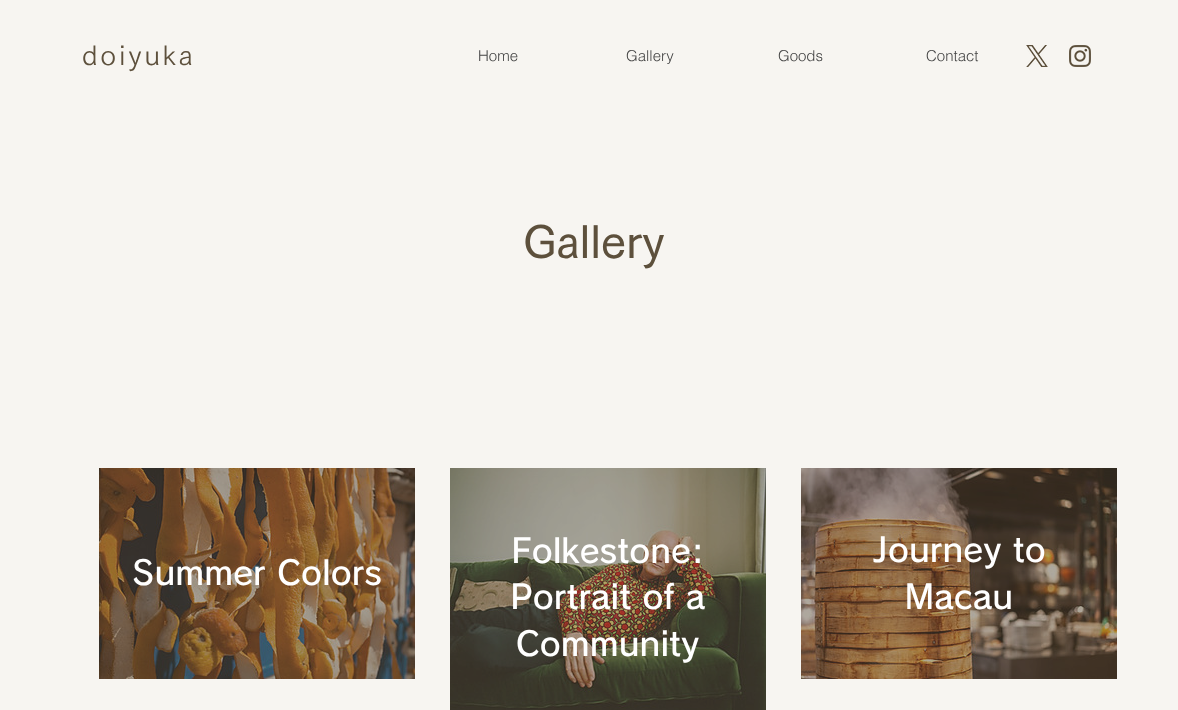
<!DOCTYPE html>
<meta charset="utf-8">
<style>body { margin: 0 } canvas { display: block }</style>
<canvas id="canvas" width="1178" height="710"></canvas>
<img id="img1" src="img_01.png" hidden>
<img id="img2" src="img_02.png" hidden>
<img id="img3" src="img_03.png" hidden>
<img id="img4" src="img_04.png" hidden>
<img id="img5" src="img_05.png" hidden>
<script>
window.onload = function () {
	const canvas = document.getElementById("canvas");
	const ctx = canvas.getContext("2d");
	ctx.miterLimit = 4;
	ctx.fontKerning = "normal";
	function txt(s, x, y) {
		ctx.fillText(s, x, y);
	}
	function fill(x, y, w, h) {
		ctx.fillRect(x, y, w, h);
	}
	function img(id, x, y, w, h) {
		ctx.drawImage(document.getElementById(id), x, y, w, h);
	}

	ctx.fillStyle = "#F7F5F1";
	fill(0, 0, 1178, 710);
	img("img1", 1026, 45, 22, 22);
	img("img2", 1069, 45, 22, 22);
	img("img3", 99, 468, 316, 211);
	img("img4", 450, 468, 316, 242);
	img("img5", 801, 468, 316, 211);
	ctx.letterSpacing = "2.75px";
	ctx.font = "27px 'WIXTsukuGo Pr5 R'";
	ctx.fillStyle = "#5D503C";
	txt("doiyuka", 82, 65);
	ctx.letterSpacing = "0px";
	ctx.font = "300 15px helvetica";
	ctx.fillStyle = "#444444";
	txt("Home", 478, 61);
	txt("Gallery", 626, 61);
	txt("Goods", 778, 61);
	txt("Contact", 926, 61);
	ctx.font = "600 45px 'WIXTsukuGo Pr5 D'";
	ctx.fillStyle = "#5D503C";
	txt("Gallery", 523, 258);
	ctx.font = "600 33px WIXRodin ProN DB";
	ctx.fillStyle = "#FFFFFF";
	txt("Summer Colors", 132, 585);
	txt("Folkestone:", 511, 563);
	txt("Portrait of a", 510, 609);
	txt("Community", 516, 656);
	txt("Journey to", 873, 562);
	txt("Macau", 904, 609);
};
</script>
